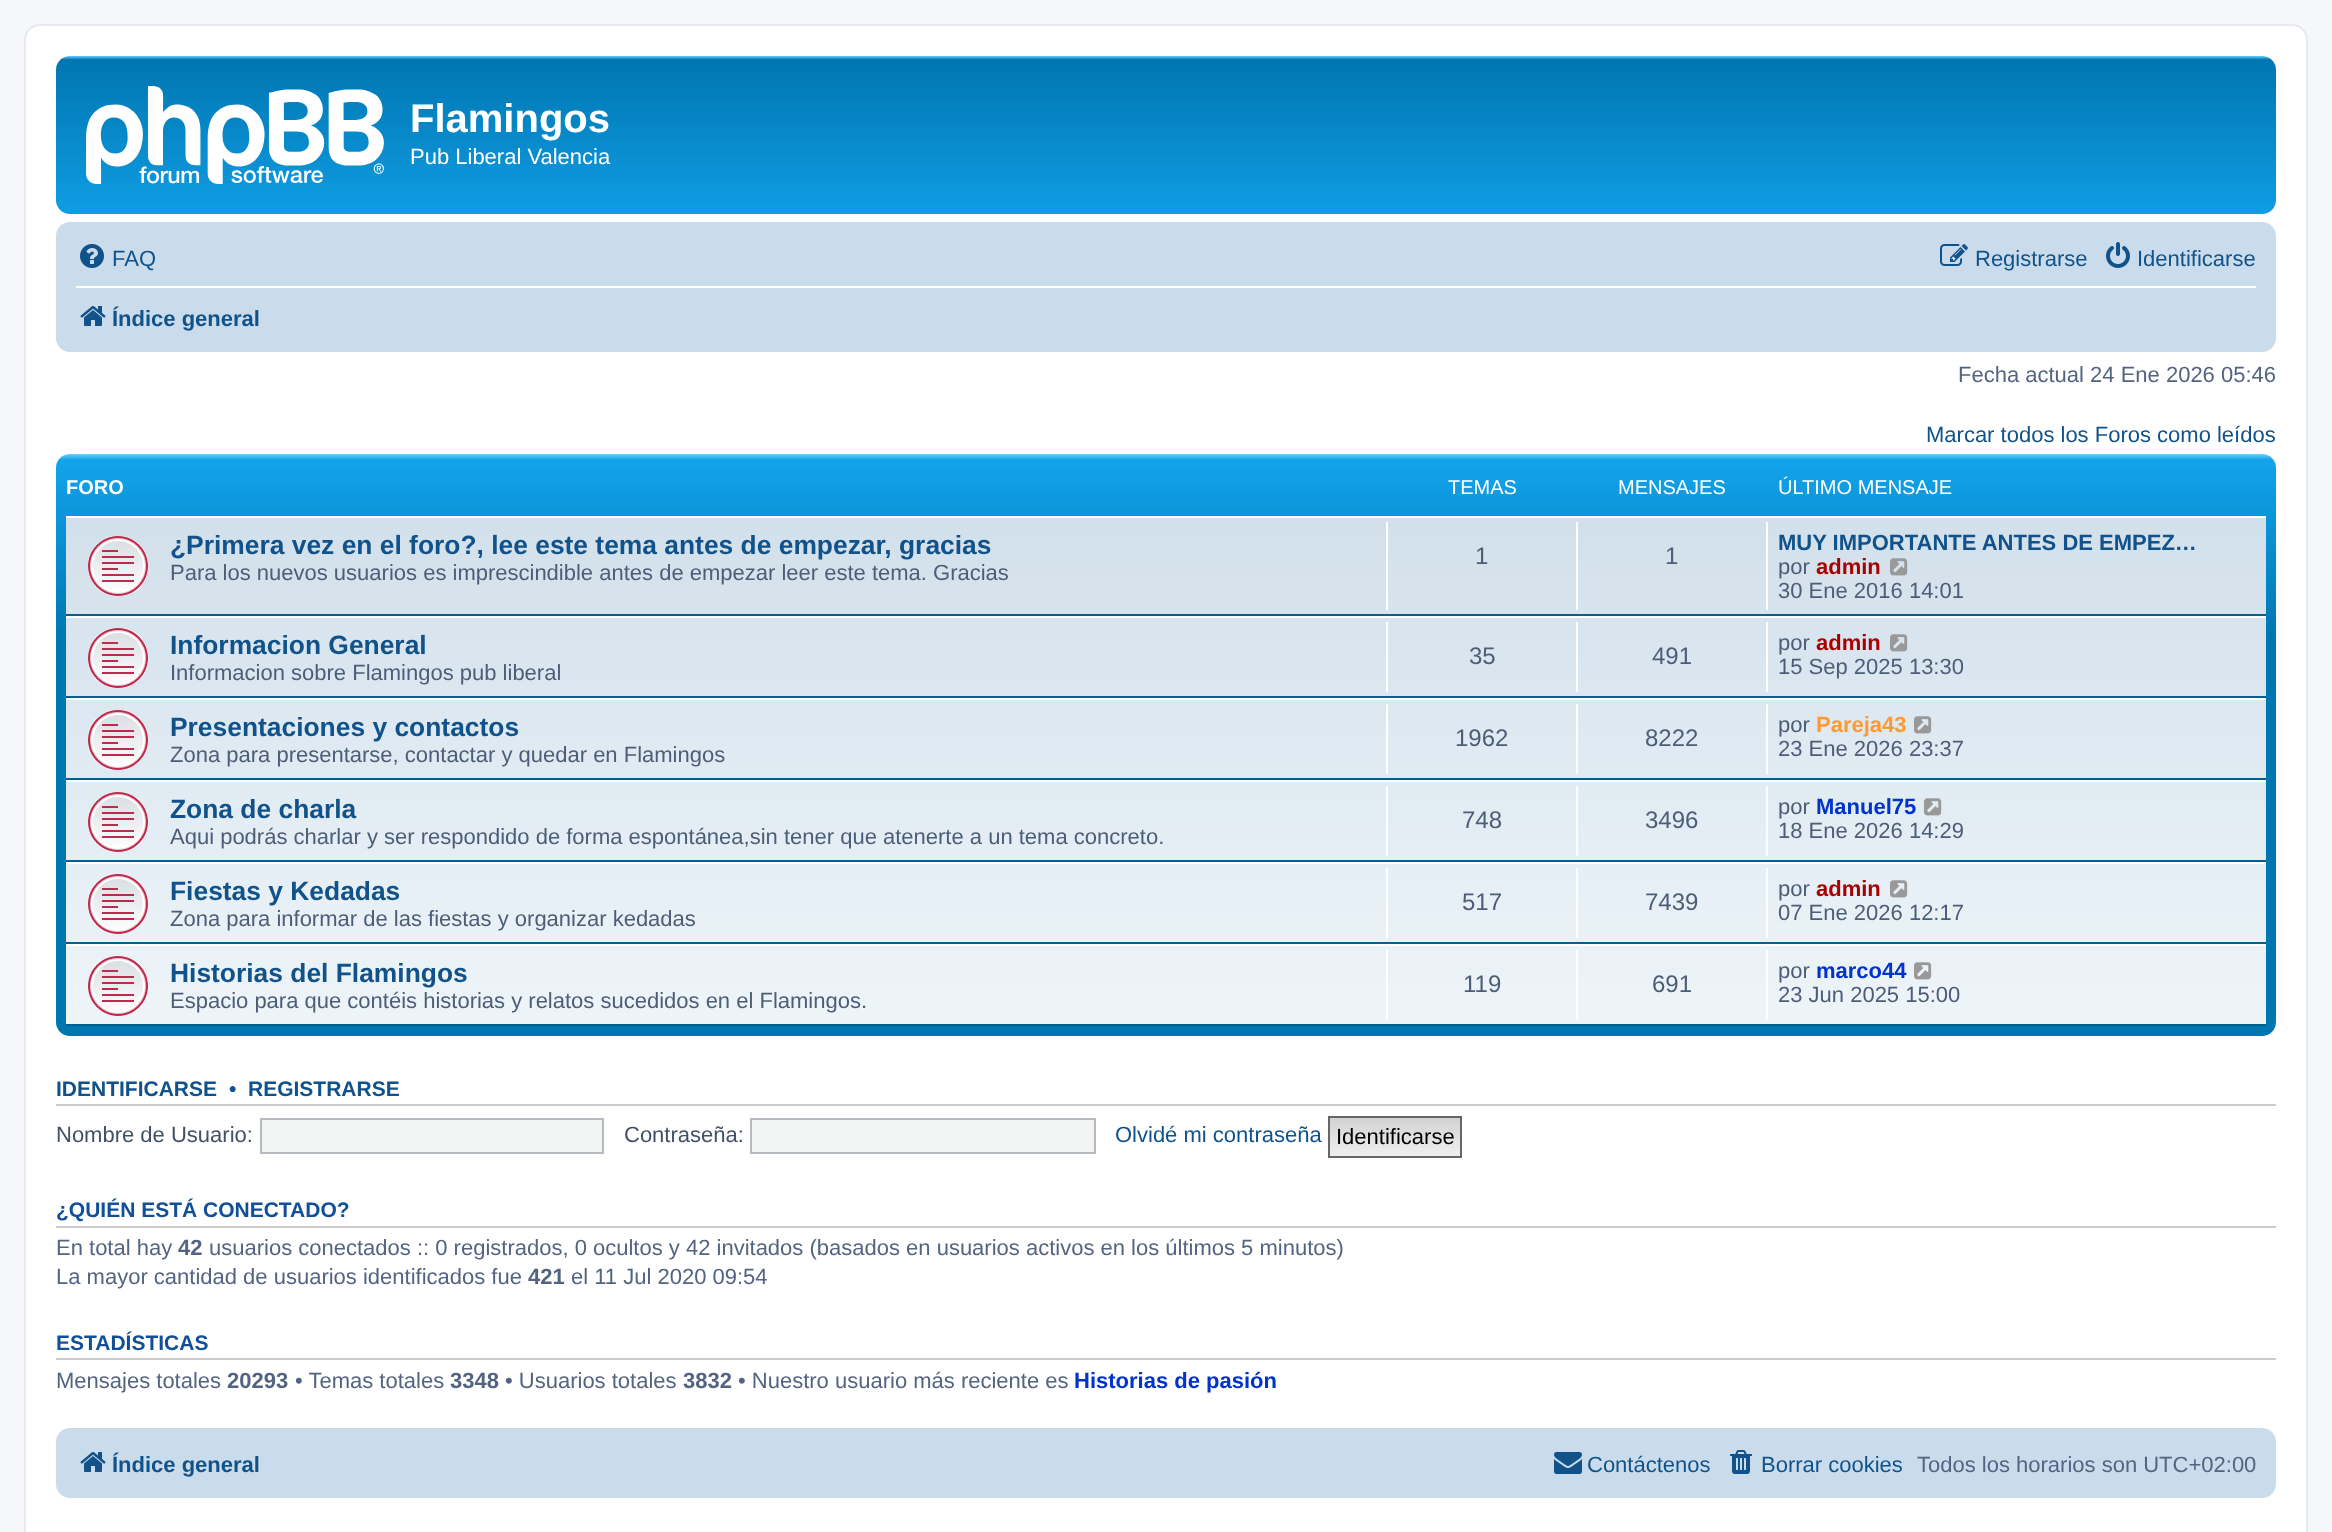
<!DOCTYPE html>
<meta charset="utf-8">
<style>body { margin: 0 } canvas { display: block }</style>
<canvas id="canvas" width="2332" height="1532"></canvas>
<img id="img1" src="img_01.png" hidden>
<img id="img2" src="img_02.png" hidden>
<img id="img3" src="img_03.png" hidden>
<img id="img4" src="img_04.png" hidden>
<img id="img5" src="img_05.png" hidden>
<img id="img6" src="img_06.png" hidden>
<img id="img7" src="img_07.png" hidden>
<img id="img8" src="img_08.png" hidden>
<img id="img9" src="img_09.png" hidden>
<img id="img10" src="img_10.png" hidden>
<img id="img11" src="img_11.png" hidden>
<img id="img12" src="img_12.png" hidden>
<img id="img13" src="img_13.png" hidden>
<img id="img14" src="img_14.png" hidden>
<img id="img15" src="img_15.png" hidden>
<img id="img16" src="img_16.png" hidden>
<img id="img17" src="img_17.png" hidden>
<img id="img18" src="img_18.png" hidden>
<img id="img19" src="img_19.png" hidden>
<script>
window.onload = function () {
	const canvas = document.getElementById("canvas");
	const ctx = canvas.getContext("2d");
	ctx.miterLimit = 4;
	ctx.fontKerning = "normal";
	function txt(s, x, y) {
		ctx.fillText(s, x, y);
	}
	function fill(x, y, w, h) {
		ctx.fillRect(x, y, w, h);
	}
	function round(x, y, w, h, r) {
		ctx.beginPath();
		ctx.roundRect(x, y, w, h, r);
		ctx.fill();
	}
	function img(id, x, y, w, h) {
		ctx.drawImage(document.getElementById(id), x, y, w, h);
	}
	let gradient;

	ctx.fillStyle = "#F5F7FA";
	fill(0, 0, 2332, 1532);
	ctx.fillStyle = "#FFFFFF";
	ctx.beginPath();
	ctx.roundRect(25, 25, 2282, 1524, 15);
	ctx.fill();
	ctx.strokeStyle = "#E6E9ED";
	ctx.lineWidth = 2;
	ctx.stroke();
	gradient = ctx.createLinearGradient(1166, 56, 1166, 240);
	gradient.addColorStop(0, "#6ACEFF");
	gradient.addColorStop(0.02, "#0076B1");
	gradient.addColorStop(1, "#12A3EB");
	ctx.fillStyle = gradient;
	round(56, 56, 2220, 158, 14);
	img("img1", 86, 86, 298, 98);
	ctx.fillStyle = "#CADCEB";
	round(56, 222, 2220, 130, 14);
	img("img2", 80, 244, 24, 24);
	img("img3", 1940, 244, 28, 22);
	img("img4", 2106, 242, 24, 26);
	ctx.fillStyle = "#FFFFFF";
	fill(76, 286, 2180, 2);
	img("img5", 80, 306, 26, 20);
	gradient = ctx.createLinearGradient(1166, 454, 1166, 1036);
	gradient.addColorStop(0, "#6ACEFF");
	gradient.addColorStop(0.01, "#12A3EB");
	gradient.addColorStop(0.32, "#0076B1");
	gradient.addColorStop(1, "#0076B1");
	ctx.fillStyle = gradient;
	round(56, 454, 2220, 582, 14);
	gradient = ctx.createLinearGradient(1166, 516, 1166, 1026);
	gradient.addColorStop(0, "#D2E0EB");
	gradient.addColorStop(1, "#EEF5F9");
	ctx.fillStyle = gradient;
	fill(66, 518, 2200, 506);
	ctx.fillStyle = "#FFFFFF";
	fill(66, 516, 2200, 2);
	ctx.fillStyle = "#00608F";
	fill(66, 614, 2200, 2);
	img("img6", 88, 536, 60, 60);
	ctx.fillStyle = "#FFFFFF";
	fill(1386, 522, 2, 88);
	fill(1576, 522, 2, 88);
	fill(1766, 522, 2, 88);
	img("img7", 1890, 558, 18, 18);
	fill(66, 616, 2200, 2);
	ctx.fillStyle = "#00608F";
	fill(66, 696, 2200, 2);
	img("img8", 88, 628, 60, 60);
	ctx.fillStyle = "#FFFFFF";
	fill(1386, 622, 2, 70);
	fill(1576, 622, 2, 70);
	fill(1766, 622, 2, 70);
	img("img9", 1890, 634, 18, 18);
	fill(66, 698, 2200, 2);
	ctx.fillStyle = "#00608F";
	fill(66, 778, 2200, 2);
	img("img10", 88, 710, 60, 60);
	ctx.fillStyle = "#FFFFFF";
	fill(1386, 704, 2, 70);
	fill(1576, 704, 2, 70);
	fill(1766, 704, 2, 70);
	img("img11", 1914, 716, 18, 18);
	fill(66, 780, 2200, 2);
	ctx.fillStyle = "#00608F";
	fill(66, 860, 2200, 2);
	img("img12", 88, 792, 60, 60);
	ctx.fillStyle = "#FFFFFF";
	fill(1386, 786, 2, 70);
	fill(1576, 786, 2, 70);
	fill(1766, 786, 2, 70);
	img("img13", 1924, 798, 18, 18);
	fill(66, 862, 2200, 2);
	ctx.fillStyle = "#00608F";
	fill(66, 942, 2200, 2);
	img("img14", 88, 874, 60, 60);
	ctx.fillStyle = "#FFFFFF";
	fill(1386, 868, 2, 70);
	fill(1576, 868, 2, 70);
	fill(1766, 868, 2, 70);
	img("img15", 1890, 880, 18, 18);
	fill(66, 944, 2200, 2);
	ctx.fillStyle = "#00608F";
	fill(66, 1024, 2200, 2);
	img("img16", 88, 956, 60, 60);
	ctx.fillStyle = "#FFFFFF";
	fill(1386, 950, 2, 70);
	fill(1576, 950, 2, 70);
	fill(1766, 950, 2, 70);
	img("img17", 1914, 962, 18, 18);
	ctx.fillStyle = "#CCCCCC";
	fill(56, 1104, 2220, 2);
	ctx.fillStyle = "#F2F3F3";
	ctx.beginPath();
	ctx.rect(261, 1119, 342, 34);
	ctx.fill();
	ctx.strokeStyle = "#B4BAC0";
	ctx.stroke();
	ctx.beginPath();
	ctx.rect(751, 1119, 344, 34);
	ctx.fill();
	ctx.stroke();
	gradient = ctx.createLinearGradient(1395, 1118, 1395, 1156);
	gradient.addColorStop(0, "#D2D2D2");
	gradient.addColorStop(1, "#EFEFEF");
	ctx.fillStyle = gradient;
	fill(1330, 1118, 130, 38);
	ctx.strokeStyle = "#666666";
	ctx.strokeRect(1329, 1117, 132, 40);
	ctx.fillStyle = "#CCCCCC";
	fill(56, 1226, 2220, 2);
	fill(56, 1358, 2220, 2);
	ctx.fillStyle = "#CADCEB";
	round(56, 1428, 2220, 70, 14);
	img("img5", 80, 1452, 26, 20);
	img("img18", 1554, 1452, 28, 22);
	img("img19", 1730, 1450, 22, 24);
	ctx.font = "bold 40px Liberation Sans";
	ctx.fillStyle = "#FFFFFF";
	txt("Flamingos", 410, 132);
	ctx.font = "22px Liberation Sans";
	txt("Pub Liberal Valencia", 410, 164);
	ctx.fillStyle = "#105289";
	txt("FAQ", 112, 266);
	txt("Registrarse", 1975, 266);
	txt("Identificarse", 2137, 266);
	ctx.font = "bold 22px Liberation Sans";
	txt("Índice general", 112, 326);
	ctx.font = "22px Liberation Sans";
	ctx.fillStyle = "#536482";
	txt("Fecha actual 24 Ene 2026 05:46", 1958, 382);
	ctx.fillStyle = "#105289";
	txt("Marcar todos los Foros como leídos", 1926, 442);
	ctx.font = "bold 20px Liberation Sans";
	ctx.fillStyle = "#FFFFFF";
	txt("FORO", 66, 494);
	ctx.font = "20px Liberation Sans";
	txt("TEMAS", 1448, 494);
	txt("MENSAJES", 1618, 494);
	txt("ÚLTIMO MENSAJE", 1778, 494);
	ctx.font = "bold 26.4px Liberation Sans";
	ctx.fillStyle = "#105289";
	txt("¿Primera vez en el foro?, lee este tema antes de empezar, gracias", 170, 554);
	ctx.font = "22px Liberation Sans";
	ctx.fillStyle = "#4C5D77";
	txt("Para los nuevos usuarios es imprescindible antes de empezar leer este tema. Gracias", 170, 580);
	ctx.font = "24px Liberation Sans";
	txt("1", 1475, 564);
	txt("1", 1665, 564);
	ctx.font = "bold 22px Liberation Sans";
	ctx.fillStyle = "#105289";
	txt("MUY IMPORTANTE ANTES DE EMPEZ…", 1778, 550);
	ctx.font = "22px Liberation Sans";
	ctx.fillStyle = "#4C5D77";
	txt("por", 1778, 574);
	ctx.font = "bold 22px Liberation Sans";
	ctx.fillStyle = "#AA0000";
	txt("admin", 1816, 574);
	ctx.font = "22px Liberation Sans";
	ctx.fillStyle = "#4C5D77";
	txt("30 Ene 2016 14:01", 1778, 598);
	ctx.font = "bold 26.4px Liberation Sans";
	ctx.fillStyle = "#105289";
	txt("Informacion General", 170, 654);
	ctx.font = "22px Liberation Sans";
	ctx.fillStyle = "#4C5D77";
	txt("Informacion sobre Flamingos pub liberal", 170, 680);
	ctx.font = "24px Liberation Sans";
	txt("35", 1469, 664);
	txt("491", 1652, 664);
	ctx.font = "22px Liberation Sans";
	txt("por", 1778, 650);
	ctx.font = "bold 22px Liberation Sans";
	ctx.fillStyle = "#AA0000";
	txt("admin", 1816, 650);
	ctx.font = "22px Liberation Sans";
	ctx.fillStyle = "#4C5D77";
	txt("15 Sep 2025 13:30", 1778, 674);
	ctx.font = "bold 26.4px Liberation Sans";
	ctx.fillStyle = "#105289";
	txt("Presentaciones y contactos", 170, 736);
	ctx.font = "22px Liberation Sans";
	ctx.fillStyle = "#4C5D77";
	txt("Zona para presentarse, contactar y quedar en Flamingos", 170, 762);
	ctx.font = "24px Liberation Sans";
	txt("1962", 1455, 746);
	txt("8222", 1645, 746);
	ctx.font = "22px Liberation Sans";
	txt("por", 1778, 732);
	ctx.font = "bold 22px Liberation Sans";
	ctx.fillStyle = "#FF9933";
	txt("Pareja43", 1816, 732);
	ctx.font = "22px Liberation Sans";
	ctx.fillStyle = "#4C5D77";
	txt("23 Ene 2026 23:37", 1778, 756);
	ctx.font = "bold 26.4px Liberation Sans";
	ctx.fillStyle = "#105289";
	txt("Zona de charla", 170, 818);
	ctx.font = "22px Liberation Sans";
	ctx.fillStyle = "#4C5D77";
	txt("Aqui podrás charlar y ser respondido de forma espontánea,sin tener que atenerte a un tema concreto.", 170, 844);
	ctx.font = "24px Liberation Sans";
	txt("748", 1462, 828);
	txt("3496", 1645, 828);
	ctx.font = "22px Liberation Sans";
	txt("por", 1778, 814);
	ctx.font = "bold 22px Liberation Sans";
	ctx.fillStyle = "#0033CC";
	txt("Manuel75", 1816, 814);
	ctx.font = "22px Liberation Sans";
	ctx.fillStyle = "#4C5D77";
	txt("18 Ene 2026 14:29", 1778, 838);
	ctx.font = "bold 26.4px Liberation Sans";
	ctx.fillStyle = "#105289";
	txt("Fiestas y Kedadas", 170, 900);
	ctx.font = "22px Liberation Sans";
	ctx.fillStyle = "#4C5D77";
	txt("Zona para informar de las fiestas y organizar kedadas", 170, 926);
	ctx.font = "24px Liberation Sans";
	txt("517", 1462, 910);
	txt("7439", 1645, 910);
	ctx.font = "22px Liberation Sans";
	txt("por", 1778, 896);
	ctx.font = "bold 22px Liberation Sans";
	ctx.fillStyle = "#AA0000";
	txt("admin", 1816, 896);
	ctx.font = "22px Liberation Sans";
	ctx.fillStyle = "#4C5D77";
	txt("07 Ene 2026 12:17", 1778, 920);
	ctx.font = "bold 26.4px Liberation Sans";
	ctx.fillStyle = "#105289";
	txt("Historias del Flamingos", 170, 982);
	ctx.font = "22px Liberation Sans";
	ctx.fillStyle = "#4C5D77";
	txt("Espacio para que contéis historias y relatos sucedidos en el Flamingos.", 170, 1008);
	ctx.font = "24px Liberation Sans";
	txt("119", 1463, 992);
	txt("691", 1652, 992);
	ctx.font = "22px Liberation Sans";
	txt("por", 1778, 978);
	ctx.font = "bold 22px Liberation Sans";
	ctx.fillStyle = "#0033CC";
	txt("marco44", 1816, 978);
	ctx.font = "22px Liberation Sans";
	ctx.fillStyle = "#4C5D77";
	txt("23 Jun 2025 15:00", 1778, 1002);
	ctx.font = "bold 21px Liberation Sans";
	ctx.fillStyle = "#105289";
	txt("IDENTIFICARSE", 56, 1096);
	ctx.fillStyle = "#115098";
	txt("•", 229, 1096);
	ctx.fillStyle = "#105289";
	txt("REGISTRARSE", 248, 1096);
	ctx.font = "22px Liberation Sans";
	ctx.fillStyle = "#425067";
	txt("Nombre de Usuario:", 56, 1142);
	txt("Contraseña:", 624, 1142);
	ctx.fillStyle = "#105289";
	txt("Olvidé mi contraseña", 1115, 1142);
	ctx.fillStyle = "#000000";
	txt("Identificarse", 1336, 1144);
	ctx.font = "bold 21px Liberation Sans";
	ctx.fillStyle = "#115098";
	txt("¿QUIÉN ESTÁ CONECTADO?", 56, 1217);
	ctx.font = "22px Liberation Sans";
	ctx.fillStyle = "#536482";
	txt("En total hay", 56, 1255);
	ctx.font = "bold 22px Liberation Sans";
	txt("42", 178, 1255);
	ctx.font = "22px Liberation Sans";
	txt("usuarios conectados :: 0 registrados, 0 ocultos y 42 invitados (basados en usuarios activos en los últimos 5 minutos)", 209, 1255);
	txt("La mayor cantidad de usuarios identificados fue", 56, 1284);
	ctx.font = "bold 22px Liberation Sans";
	txt("421", 528, 1284);
	ctx.font = "22px Liberation Sans";
	txt("el 11 Jul 2020 09:54", 571, 1284);
	ctx.font = "bold 21px Liberation Sans";
	ctx.fillStyle = "#115098";
	txt("ESTADÍSTICAS", 56, 1350);
	ctx.font = "22px Liberation Sans";
	ctx.fillStyle = "#536482";
	txt("Mensajes totales", 56, 1388);
	ctx.font = "bold 22px Liberation Sans";
	txt("20293", 227, 1388);
	ctx.font = "22px Liberation Sans";
	txt("• Temas totales", 295, 1388);
	ctx.font = "bold 22px Liberation Sans";
	txt("3348", 450, 1388);
	ctx.font = "22px Liberation Sans";
	txt("• Usuarios totales", 505, 1388);
	ctx.font = "bold 22px Liberation Sans";
	txt("3832", 683, 1388);
	ctx.font = "22px Liberation Sans";
	txt("• Nuestro usuario más reciente es", 738, 1388);
	ctx.font = "bold 22px Liberation Sans";
	ctx.fillStyle = "#0033CC";
	txt("Historias de pasión", 1074, 1388);
	ctx.fillStyle = "#105289";
	txt("Índice general", 112, 1472);
	ctx.font = "22px Liberation Sans";
	txt("Contáctenos", 1587, 1472);
	txt("Borrar cookies", 1761, 1472);
	ctx.fillStyle = "#536482";
	txt("Todos los horarios son UTC+02:00", 1917, 1472);
};
</script>
